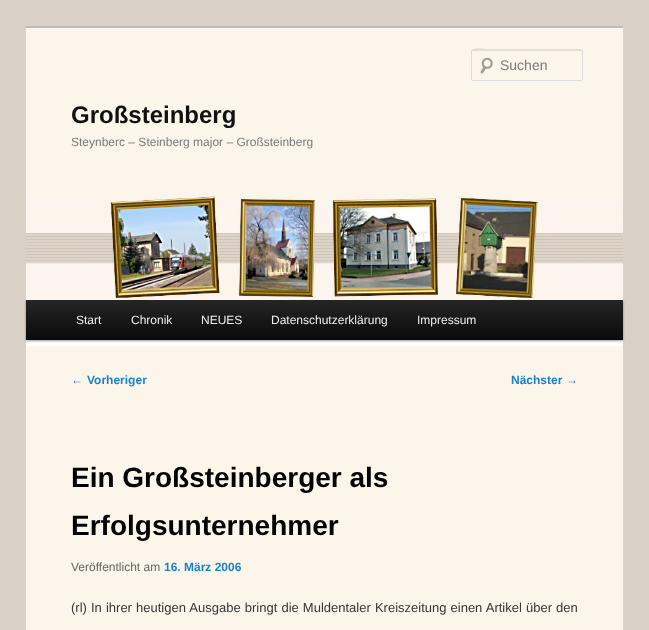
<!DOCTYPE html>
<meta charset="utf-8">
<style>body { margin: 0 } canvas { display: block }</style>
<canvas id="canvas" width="649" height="630"></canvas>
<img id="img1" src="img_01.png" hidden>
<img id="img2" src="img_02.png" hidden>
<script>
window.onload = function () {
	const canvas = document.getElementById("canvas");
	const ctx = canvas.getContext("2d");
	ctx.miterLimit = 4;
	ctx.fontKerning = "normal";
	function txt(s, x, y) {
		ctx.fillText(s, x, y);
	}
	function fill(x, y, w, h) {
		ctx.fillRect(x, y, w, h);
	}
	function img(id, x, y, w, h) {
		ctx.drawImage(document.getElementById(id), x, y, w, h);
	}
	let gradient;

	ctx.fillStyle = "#D9D1C6";
	fill(0, 0, 649, 630);
	ctx.fillStyle = "#FFFFFF";
	fill(26, 340, 597, 6);
	ctx.fillStyle = "#FCF5EA";
	fill(26, 28, 597, 168);
	ctx.fillStyle = "#BBBBBB";
	fill(26, 26, 597, 2);
	img("img1", 480, 57, 13, 17);
	ctx.fillStyle = "#E3DDD3";
	ctx.beginPath();
	ctx.moveTo(473, 51);
	ctx.lineTo(582, 51);
	ctx.lineTo(582, 52);
	ctx.lineTo(581, 50);
	ctx.lineTo(491, 50);
	ctx.bezierCurveTo(487, 50, 472, 45, 472, 52);
	ctx.bezierCurveTo(472, 51, 472, 51, 473, 51);
	ctx.closePath();
	ctx.fill();
	ctx.beginPath();
	ctx.roundRect(471.5, 49.5, 111, 31, 1.5);
	ctx.strokeStyle = "#DDDDDD";
	ctx.stroke();
	ctx.fillStyle = "rgba(0, 0, 0, 0.4)";
	ctx.filter = "blur(1px)";
	ctx.beginPath();
	ctx.rect(26, 301, 597, 40);
	ctx.fill();
	ctx.filter = "none";
	img("img2", 26, 196, 597, 104);
	gradient = ctx.createLinearGradient(325, 300, 325, 340);
	gradient.addColorStop(0, "#252525");
	gradient.addColorStop(1, "#0A0A0A");
	ctx.fillStyle = gradient;
	fill(26, 300, 597, 40);
	ctx.fillStyle = "#FCF5EA";
	fill(26, 346, 597, 284);
	ctx.font = "14px Liberation Sans";
	ctx.fillStyle = "#7A7A7A";
	txt("Suchen", 500, 70);
	ctx.font = "bold 24px Liberation Sans";
	ctx.fillStyle = "#111111";
	txt("Großsteinberg", 71, 123);
	ctx.font = "12px Liberation Sans";
	ctx.fillStyle = "#7A7A7A";
	txt("Steynberc – Steinberg major – Großsteinberg", 71, 146);
	ctx.fillStyle = "#EEEEEE";
	txt("Start", 76, 324);
	txt("Chronik", 131, 324);
	txt("NEUES", 201, 324);
	txt("Datenschutzerklärung", 271, 324);
	txt("Impressum", 417, 324);
	ctx.fillStyle = "#1982D1";
	txt("←", 71, 384);
	ctx.font = "bold 12px Liberation Sans";
	txt("Vorheriger", 87, 384);
	txt("Nächster", 511, 384);
	ctx.font = "12px Liberation Sans";
	txt("→", 566, 384);
	ctx.font = "bold 28px Liberation Sans";
	ctx.fillStyle = "#000000";
	txt("Ein Großsteinberger als", 71, 487);
	txt("Erfolgsunternehmer", 71, 535);
	ctx.font = "12px Liberation Sans";
	ctx.fillStyle = "#666666";
	txt("Veröffentlicht am", 71, 571);
	ctx.font = "bold 12px Liberation Sans";
	ctx.fillStyle = "#1982D1";
	txt("16. März 2006", 164, 571);
	ctx.wordSpacing = "0.5px";
	ctx.font = "13px Liberation Sans";
	ctx.fillStyle = "#373737";
	txt("(rl) In ihrer heutigen Ausgabe bringt die Muldentaler Kreiszeitung einen Artikel über den", 71, 612);
};
</script>
